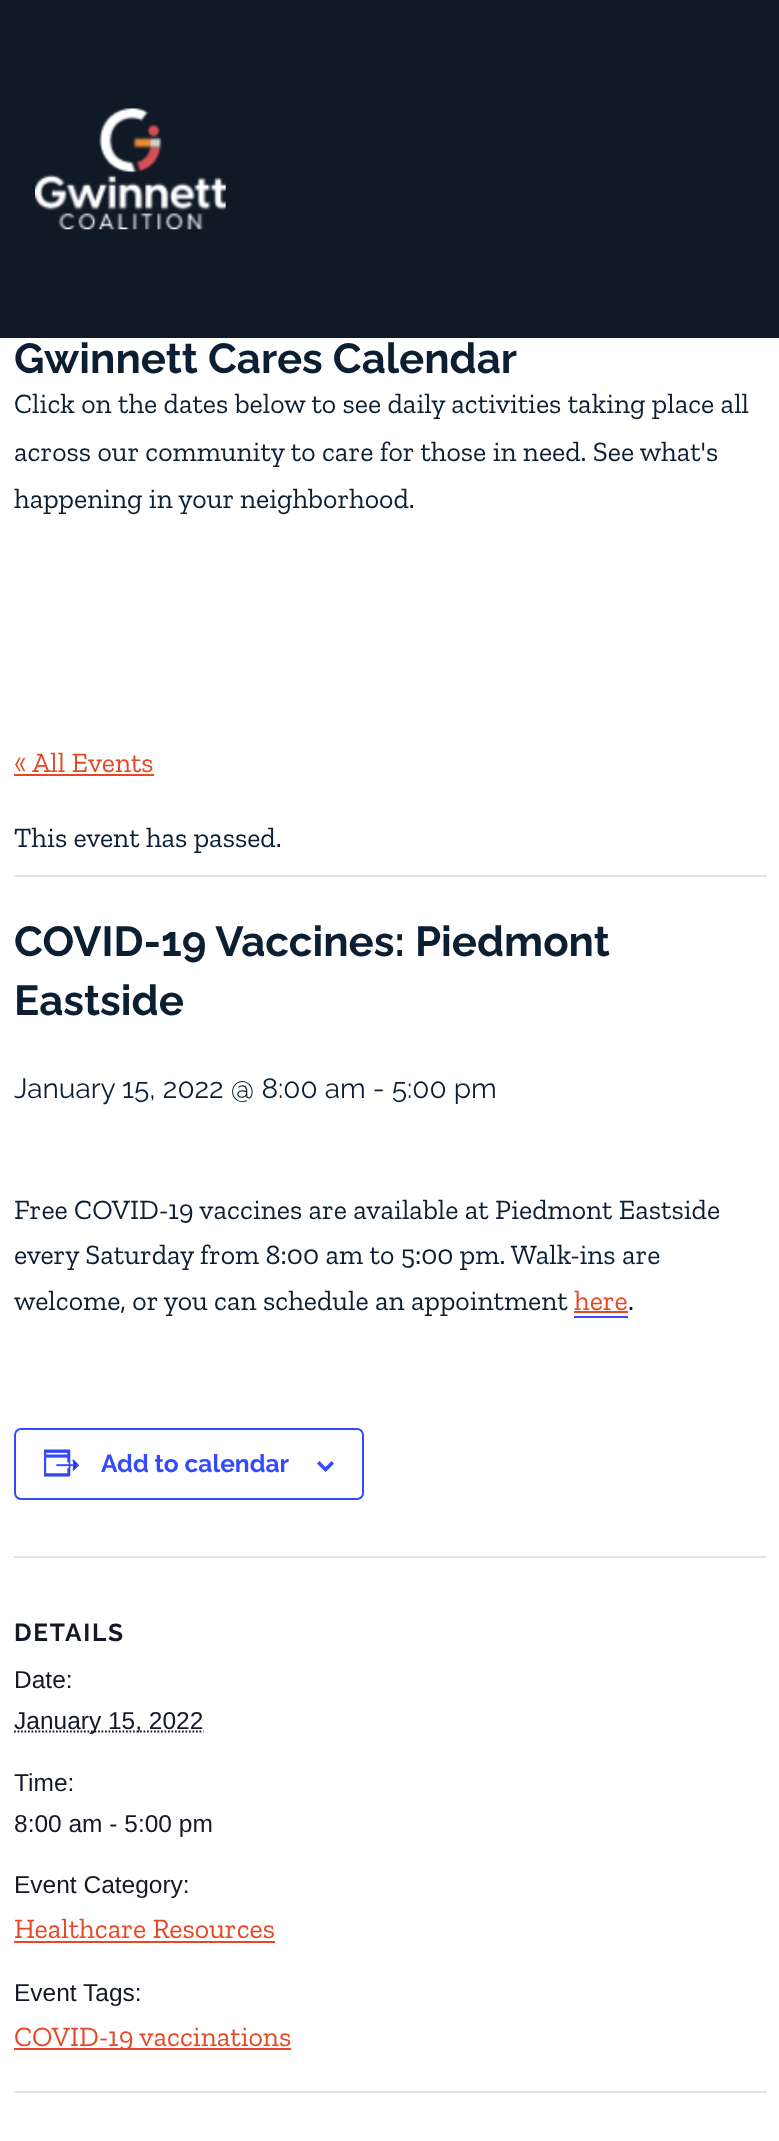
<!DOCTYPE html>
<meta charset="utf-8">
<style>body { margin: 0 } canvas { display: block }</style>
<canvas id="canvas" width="779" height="2141"></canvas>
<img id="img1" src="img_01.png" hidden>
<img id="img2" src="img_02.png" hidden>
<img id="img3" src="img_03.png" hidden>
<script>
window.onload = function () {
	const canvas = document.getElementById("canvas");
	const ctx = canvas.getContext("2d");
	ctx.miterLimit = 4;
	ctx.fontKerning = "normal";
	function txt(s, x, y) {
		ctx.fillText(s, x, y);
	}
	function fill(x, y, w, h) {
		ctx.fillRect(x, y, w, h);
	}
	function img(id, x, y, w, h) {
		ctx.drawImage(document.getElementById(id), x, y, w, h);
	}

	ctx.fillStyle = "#FFFFFF";
	fill(0, 0, 779, 2141);
	ctx.fillStyle = "#101926";
	fill(0, 0, 779, 338);
	img("img1", 35, 108, 191, 122);
	ctx.fillStyle = "#E64826";
	fill(14, 774, 140, 2);
	ctx.fillStyle = "#E4E4E4";
	fill(14, 875, 753, 2);
	ctx.fillStyle = "#334AFF";
	fill(574, 1316, 54, 2);
	ctx.fillStyle = "#E64826";
	fill(574, 1311, 54, 2);
	ctx.beginPath();
	ctx.roundRect(15, 1429, 348, 70, 6);
	ctx.strokeStyle = "#334AFF";
	ctx.lineWidth = 2;
	ctx.stroke();
	img("img2", 44, 1449, 35, 28);
	img("img3", 317, 1461, 17, 11);
	ctx.fillStyle = "#E4E4E4";
	fill(14, 1556, 753, 2);
	ctx.beginPath();
	ctx.moveTo(14, 1731.5);
	ctx.lineTo(203.5, 1731.5);
	ctx.strokeStyle = "#141827";
	ctx.lineWidth = 1.8;
	ctx.setLineDash([1.75, 1.75]);
	ctx.stroke();
	ctx.fillStyle = "#E64826";
	fill(14, 1941, 261, 2);
	fill(14, 2048, 277, 2);
	ctx.fillStyle = "#E4E4E4";
	fill(14, 2091, 753, 2);
	ctx.font = "bold 42px Raleway";
	ctx.fillStyle = "#0B1E32";
	txt("Gwinnett Cares Calendar", 14, 373);
	ctx.font = "28px Zilla Slab";
	txt("Click on the dates below to see daily activities taking place all", 14, 413);
	txt("across our community to care for those in need. See what's", 14, 461);
	txt("happening in your neighborhood.", 14, 508);
	ctx.fillStyle = "#E64826";
	txt("« All Events", 14, 772);
	ctx.fillStyle = "#0B1E32";
	txt("This event has passed.", 14, 847);
	ctx.font = "bold 42px Raleway";
	txt("COVID-19 Vaccines: Piedmont", 14, 956);
	txt("Eastside", 14, 1015);
	ctx.font = "28px Raleway";
	txt("January 15, 2022 @ 8:00 am - 5:00 pm", 14, 1098);
	ctx.font = "28px Zilla Slab";
	txt("Free COVID-19 vaccines are available at Piedmont Eastside", 14, 1219);
	txt("every Saturday from 8:00 am to 5:00 pm. Walk-ins are", 14, 1264);
	txt("welcome, or you can schedule an appointment", 14, 1310);
	ctx.fillStyle = "#E64826";
	txt("here", 574, 1310);
	ctx.fillStyle = "#0B1E32";
	txt(".", 628, 1310);
	ctx.font = "bold 24.5px Raleway";
	ctx.fillStyle = "#334AFF";
	txt("Add to calendar", 101, 1472);
	ctx.letterSpacing = "1.75px";
	ctx.fillStyle = "#141827";
	txt("DETAILS", 14, 1641);
	ctx.letterSpacing = "0px";
	ctx.font = "24.5px Liberation Sans";
	txt("Date:", 14, 1688);
	txt("January 15, 2022", 14, 1729);
	txt("Time:", 14, 1791);
	txt("8:00 am - 5:00 pm", 14, 1832);
	txt("Event Category:", 14, 1893);
	ctx.font = "28px Zilla Slab";
	ctx.fillStyle = "#E64826";
	txt("Healthcare Resources", 14, 1938);
	ctx.font = "24.5px Liberation Sans";
	ctx.fillStyle = "#141827";
	txt("Event Tags:", 14, 2001);
	ctx.font = "28px Zilla Slab";
	ctx.fillStyle = "#E64826";
	txt("COVID-19 vaccinations", 14, 2046);
};
</script>
